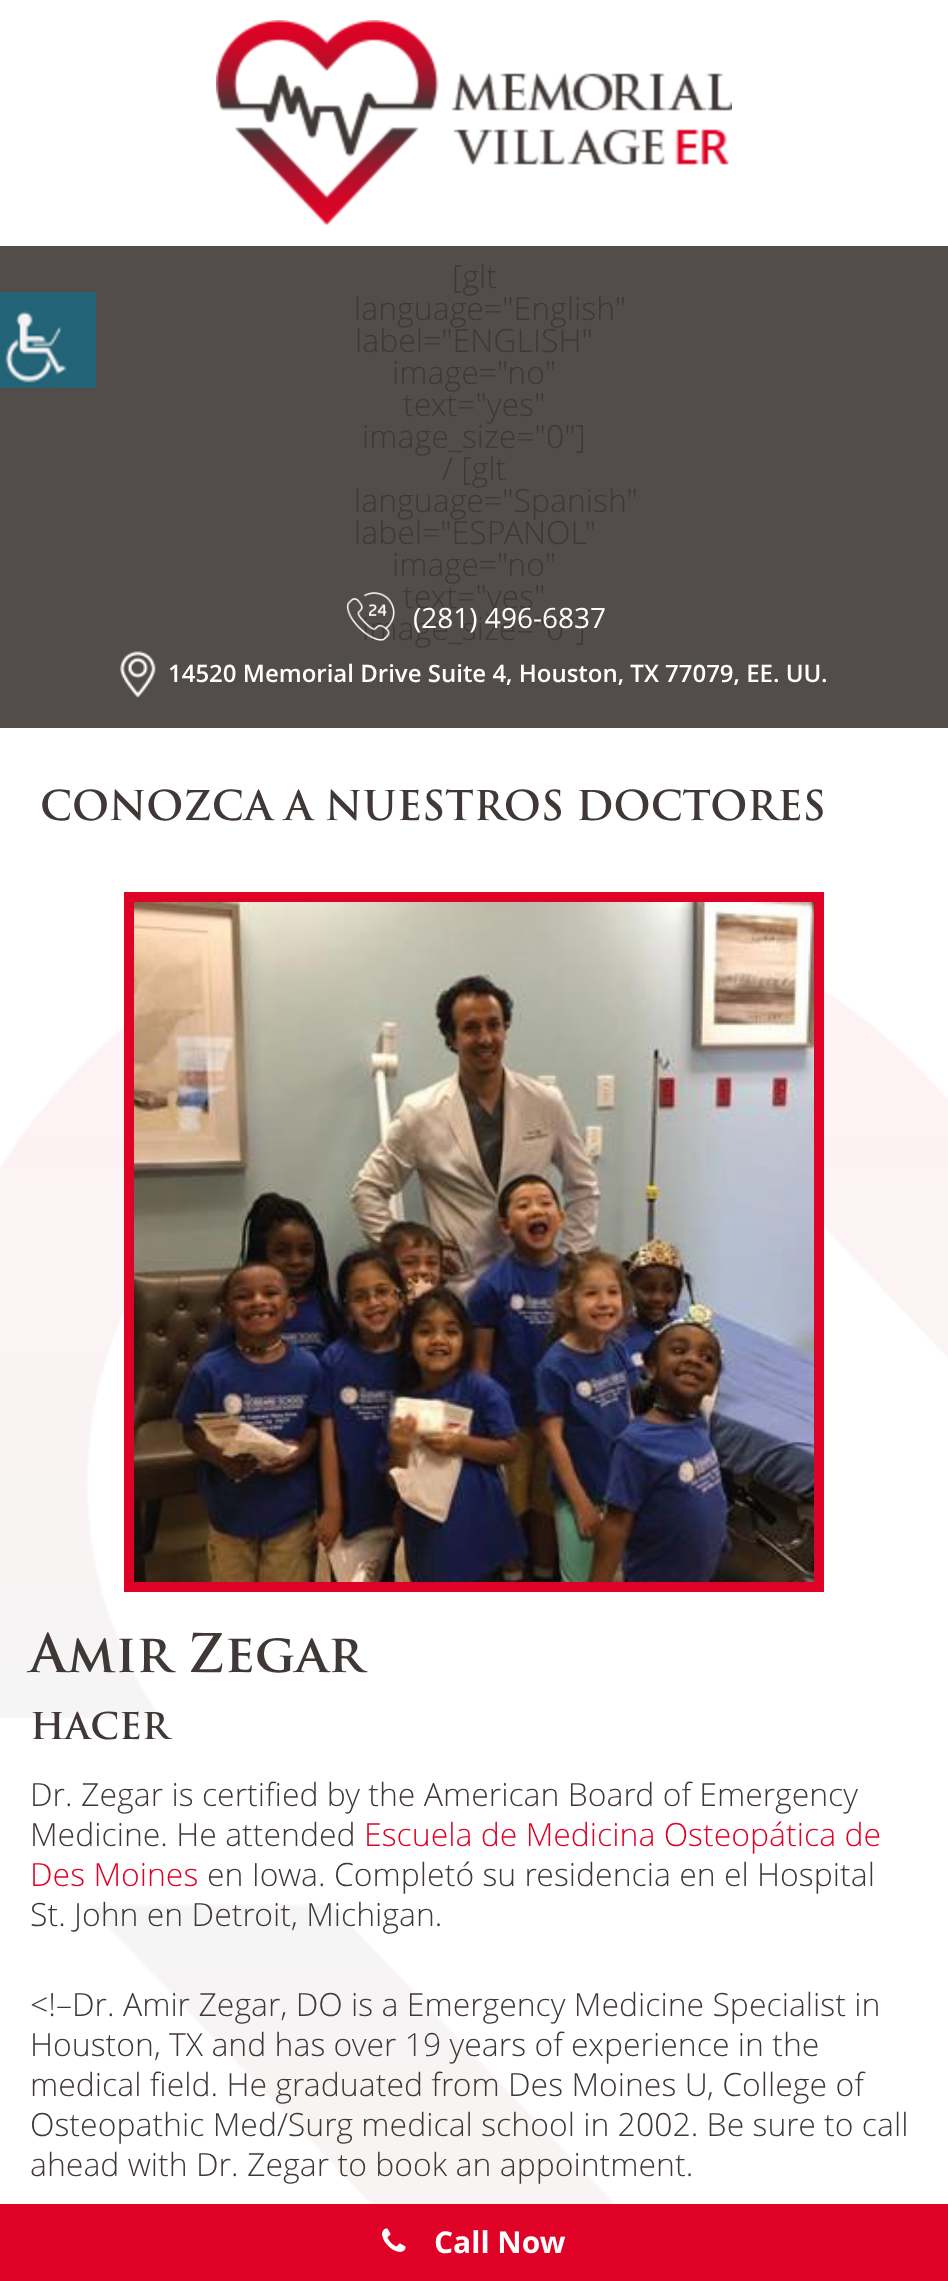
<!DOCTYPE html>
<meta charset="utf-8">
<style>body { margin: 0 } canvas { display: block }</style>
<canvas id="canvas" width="948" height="2281"></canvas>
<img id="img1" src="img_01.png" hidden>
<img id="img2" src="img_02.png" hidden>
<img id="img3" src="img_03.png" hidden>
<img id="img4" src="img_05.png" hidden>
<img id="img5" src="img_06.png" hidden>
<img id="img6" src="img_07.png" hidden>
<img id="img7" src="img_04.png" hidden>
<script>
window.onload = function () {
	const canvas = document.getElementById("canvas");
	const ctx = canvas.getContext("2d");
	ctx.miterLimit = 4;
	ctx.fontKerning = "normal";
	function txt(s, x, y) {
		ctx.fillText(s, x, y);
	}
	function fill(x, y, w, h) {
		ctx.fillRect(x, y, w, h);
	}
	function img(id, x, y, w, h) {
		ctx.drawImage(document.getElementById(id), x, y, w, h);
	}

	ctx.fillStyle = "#FFFFFF";
	fill(0, 0, 948, 2281);
	ctx.fillStyle = "#524C4A";
	fill(0, 246, 948, 482);
	img("img1", 0, 292, 96, 96);
	img("img2", 216, 20, 516, 206);
	img("img3", 120, 651, 36, 47);
	img("img4", 0, 990, 948, 1214);
	ctx.strokeStyle = "#E00226";
	ctx.lineWidth = 10;
	ctx.strokeRect(129, 897, 690, 690);
	img("img5", 134, 902, 680, 680);
	ctx.fillStyle = "#E00226";
	fill(0, 2204, 948, 77);
	img("img6", 382, 2228, 24, 24);
	ctx.font = "300 32px Open Sans";
	ctx.fillStyle = "#3F3836";
	txt("[glt", 452, 288);
	txt("language=\"English\"", 354, 320);
	txt("label=\"ENGLISH\"", 355, 352);
	txt("image=\"no\"", 392, 384);
	txt("text=\"yes\"", 403, 416);
	txt("image_size=\"0\"]", 362, 448);
	txt("/ [glt", 442, 480);
	txt("language=\"Spanish\"", 354, 512);
	txt("label=\"ESPANOL\"", 354, 544);
	txt("image=\"no\"", 392, 576);
	txt("text=\"yes\"", 403, 608);
	txt("image_size=\"0\"]", 362, 640);
	ctx.font = "600 24px Open Sans";
	ctx.fillStyle = "#FFFFFF";
	txt("14520 Memorial Drive Suite 4, Houston, TX 77079, EE. UU.", 168, 682);
	img("img7", 346, 592, 49, 49);
	ctx.font = "28px Open Sans";
	txt("(281) 496-6837", 413, 628);
	ctx.font = "bold 40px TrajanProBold";
	ctx.fillStyle = "#3F3836";
	txt("CONOZCA A NUESTROS DOCTORES", 40, 820);
	ctx.font = "bold 52px TrajanProBold";
	txt("Amir Zegar", 30, 1672);
	ctx.font = "bold 36px TrajanProBold";
	txt("HACER", 30, 1739);
	ctx.font = "300 32px Open Sans";
	txt("Dr. Zegar is certified by the American Board of Emergency", 30, 1806);
	txt("Medicine. He attended", 30, 1846);
	ctx.fillStyle = "#E00226";
	txt("Escuela de Medicina Osteopática de", 364, 1846);
	txt("Des Moines", 30, 1886);
	ctx.fillStyle = "#3F3836";
	txt("en Iowa. Completó su residencia en el Hospital", 207, 1886);
	txt("St. John en Detroit, Michigan.", 30, 1926);
	txt("<!–Dr. Amir Zegar, DO is a Emergency Medicine Specialist in", 30, 2016);
	txt("Houston, TX and has over 19 years of experience in the", 30, 2056);
	txt("medical field. He graduated from Des Moines U, College of", 30, 2096);
	txt("Osteopathic Med/Surg medical school in 2002. Be sure to call", 30, 2136);
	txt("ahead with Dr. Zegar to book an appointment.", 30, 2176);
	ctx.font = "bold 30px Open Sans";
	ctx.fillStyle = "#FFFFFF";
	txt("Call Now", 434, 2253);
};
</script>
